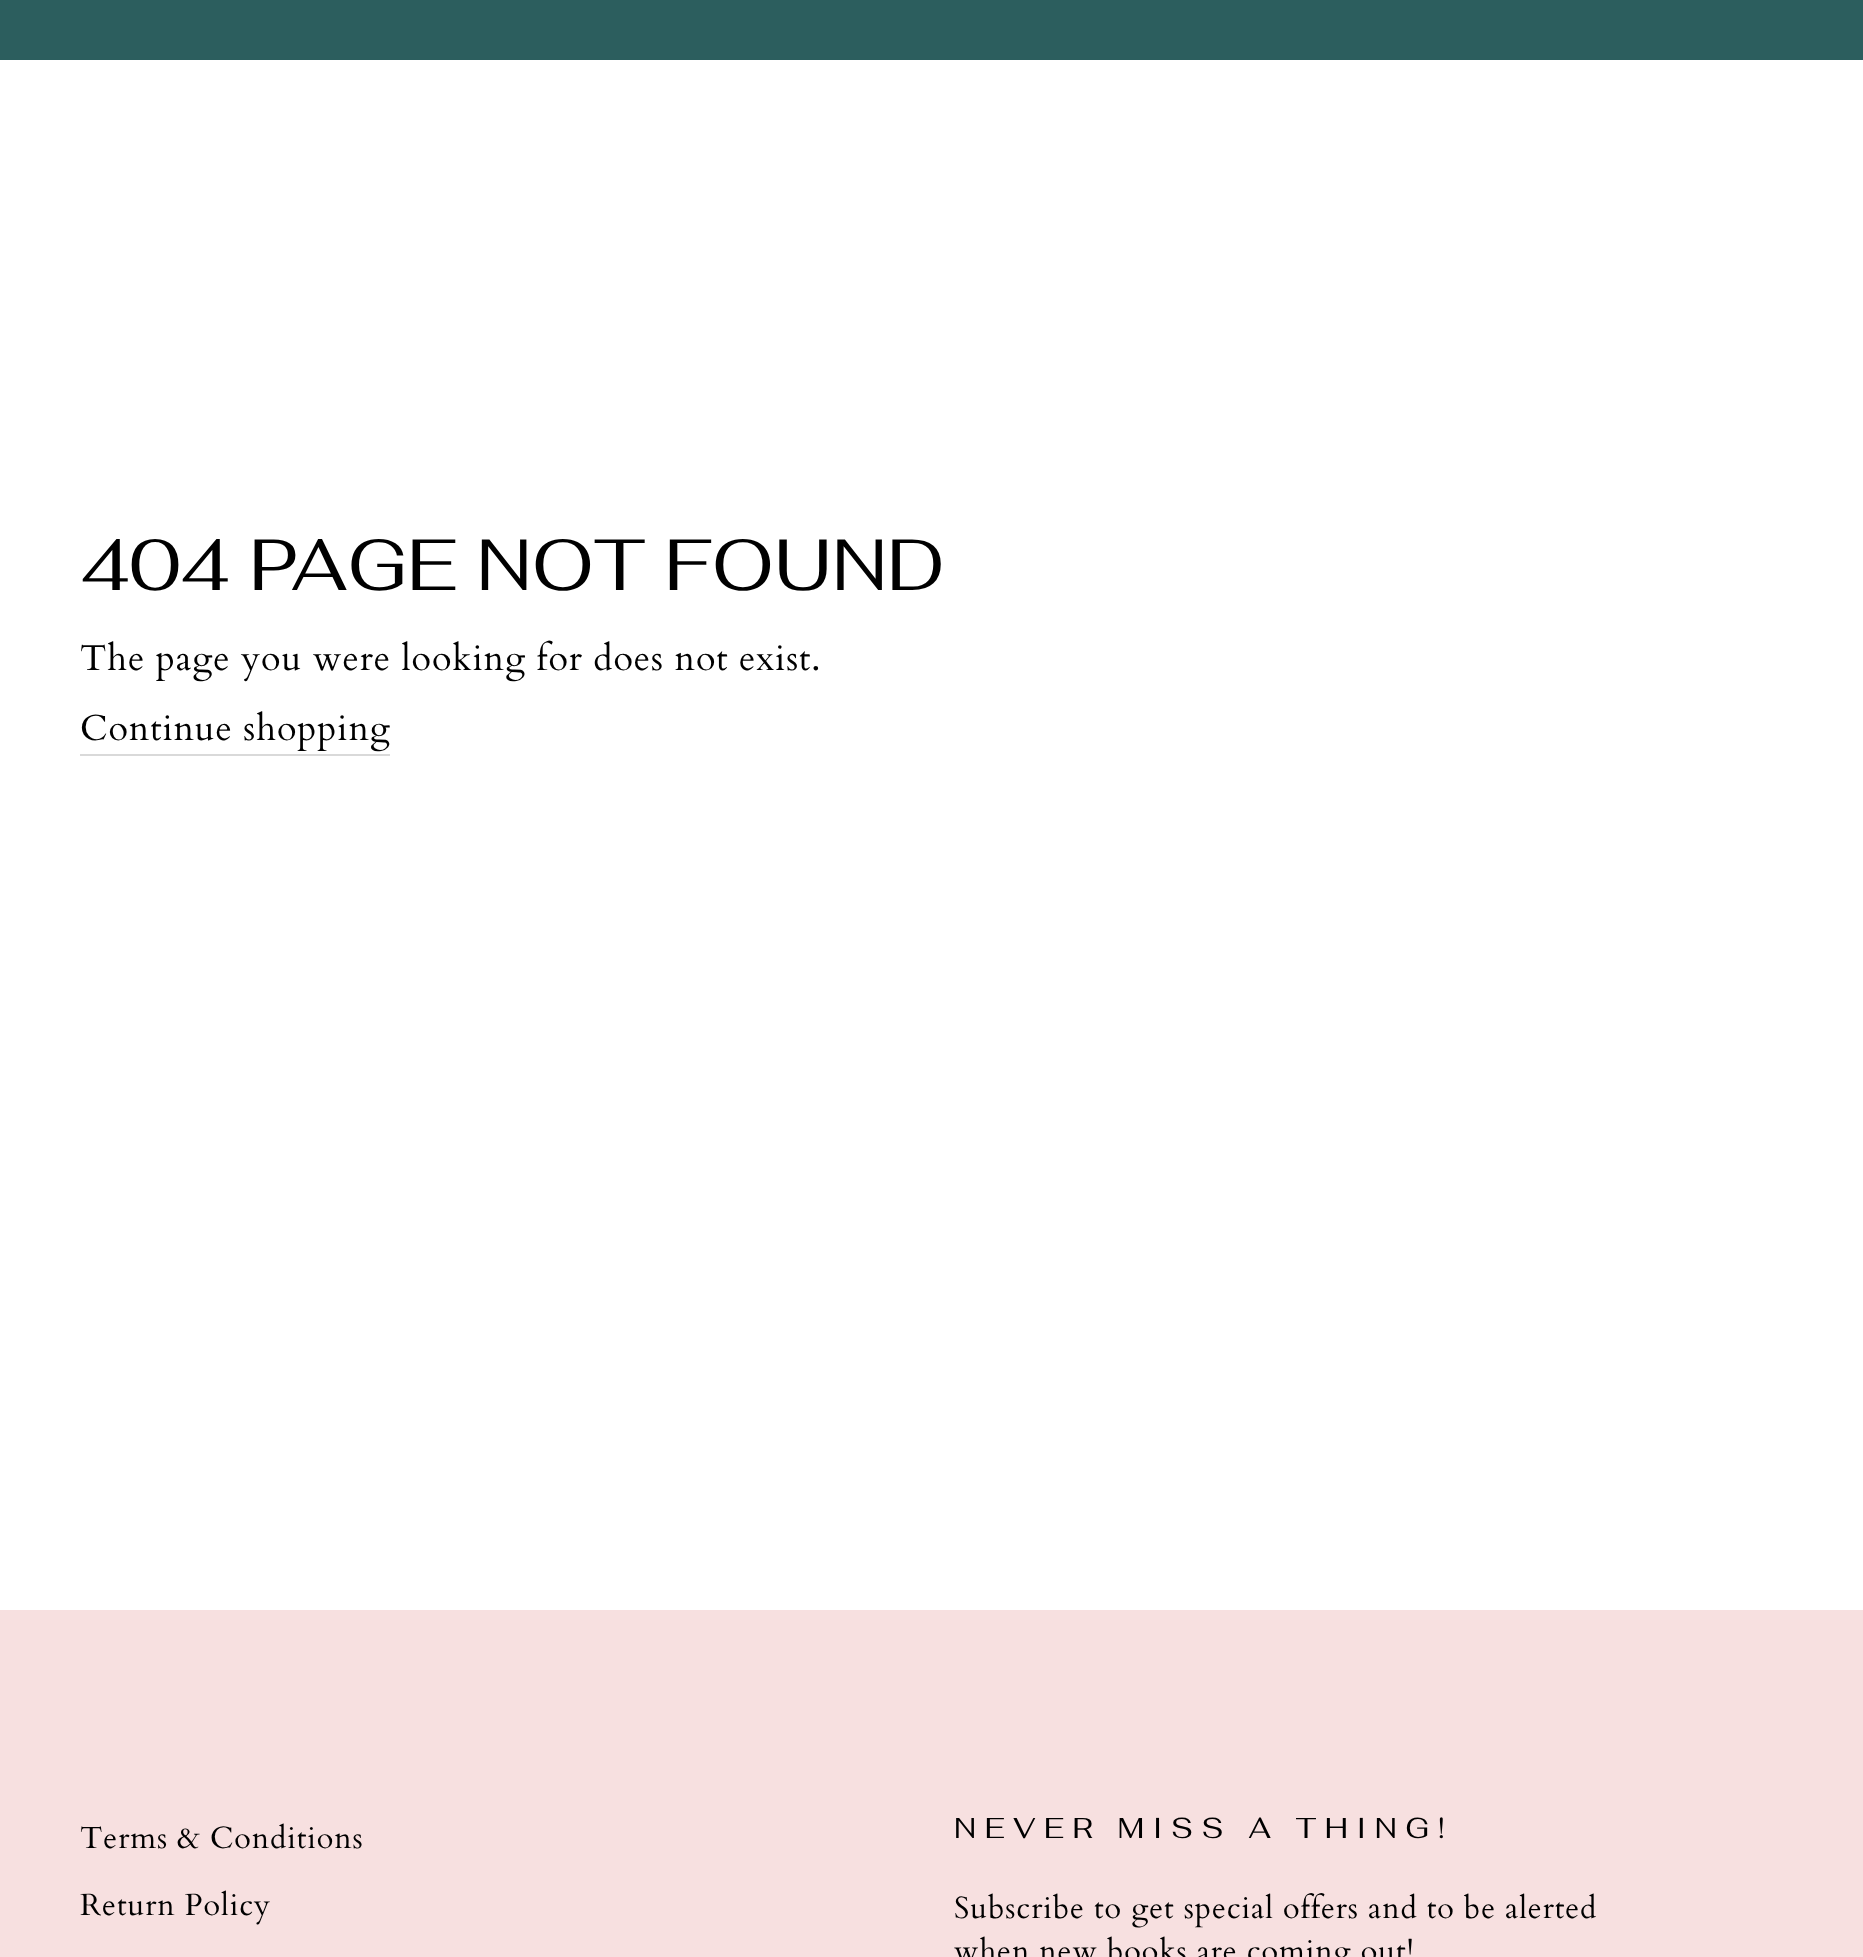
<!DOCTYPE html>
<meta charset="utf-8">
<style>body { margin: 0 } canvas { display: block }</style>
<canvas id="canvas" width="1863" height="1957"></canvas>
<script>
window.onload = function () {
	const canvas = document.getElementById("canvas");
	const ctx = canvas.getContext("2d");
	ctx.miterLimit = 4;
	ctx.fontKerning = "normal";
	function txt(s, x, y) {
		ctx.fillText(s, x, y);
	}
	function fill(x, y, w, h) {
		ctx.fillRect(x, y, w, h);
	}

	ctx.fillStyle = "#FFFFFF";
	fill(0, 0, 1863, 1957);
	ctx.fillStyle = "#2C5E5E";
	fill(0, 0, 1863, 60);
	ctx.fillStyle = "#D9D9D9";
	fill(80, 754, 310, 2);
	ctx.fillStyle = "#F7E0E0";
	fill(0, 1610, 1863, 347);
	ctx.font = "72px Fahkwang";
	ctx.fillStyle = "#000000";
	txt("404 PAGE NOT FOUND", 80, 590);
	ctx.letterSpacing = "0.9px";
	ctx.font = "36px Cardo";
	txt("The page you were looking for does not exist.", 80, 670);
	txt("Continue shopping", 80, 740);
	ctx.font = "30.6px Cardo";
	txt("Terms & Conditions", 80, 1848);
	txt("Return Policy", 80, 1915);
	ctx.letterSpacing = "8.6px";
	ctx.font = "28.75px Fahkwang";
	txt("NEVER MISS A THING!", 954, 1838);
	ctx.letterSpacing = "0.9px";
	ctx.font = "30.6px Cardo";
	txt("Subscribe to get special offers and to be alerted", 954, 1918);
	txt("when new books are coming out!", 954, 1961);
};
</script>
